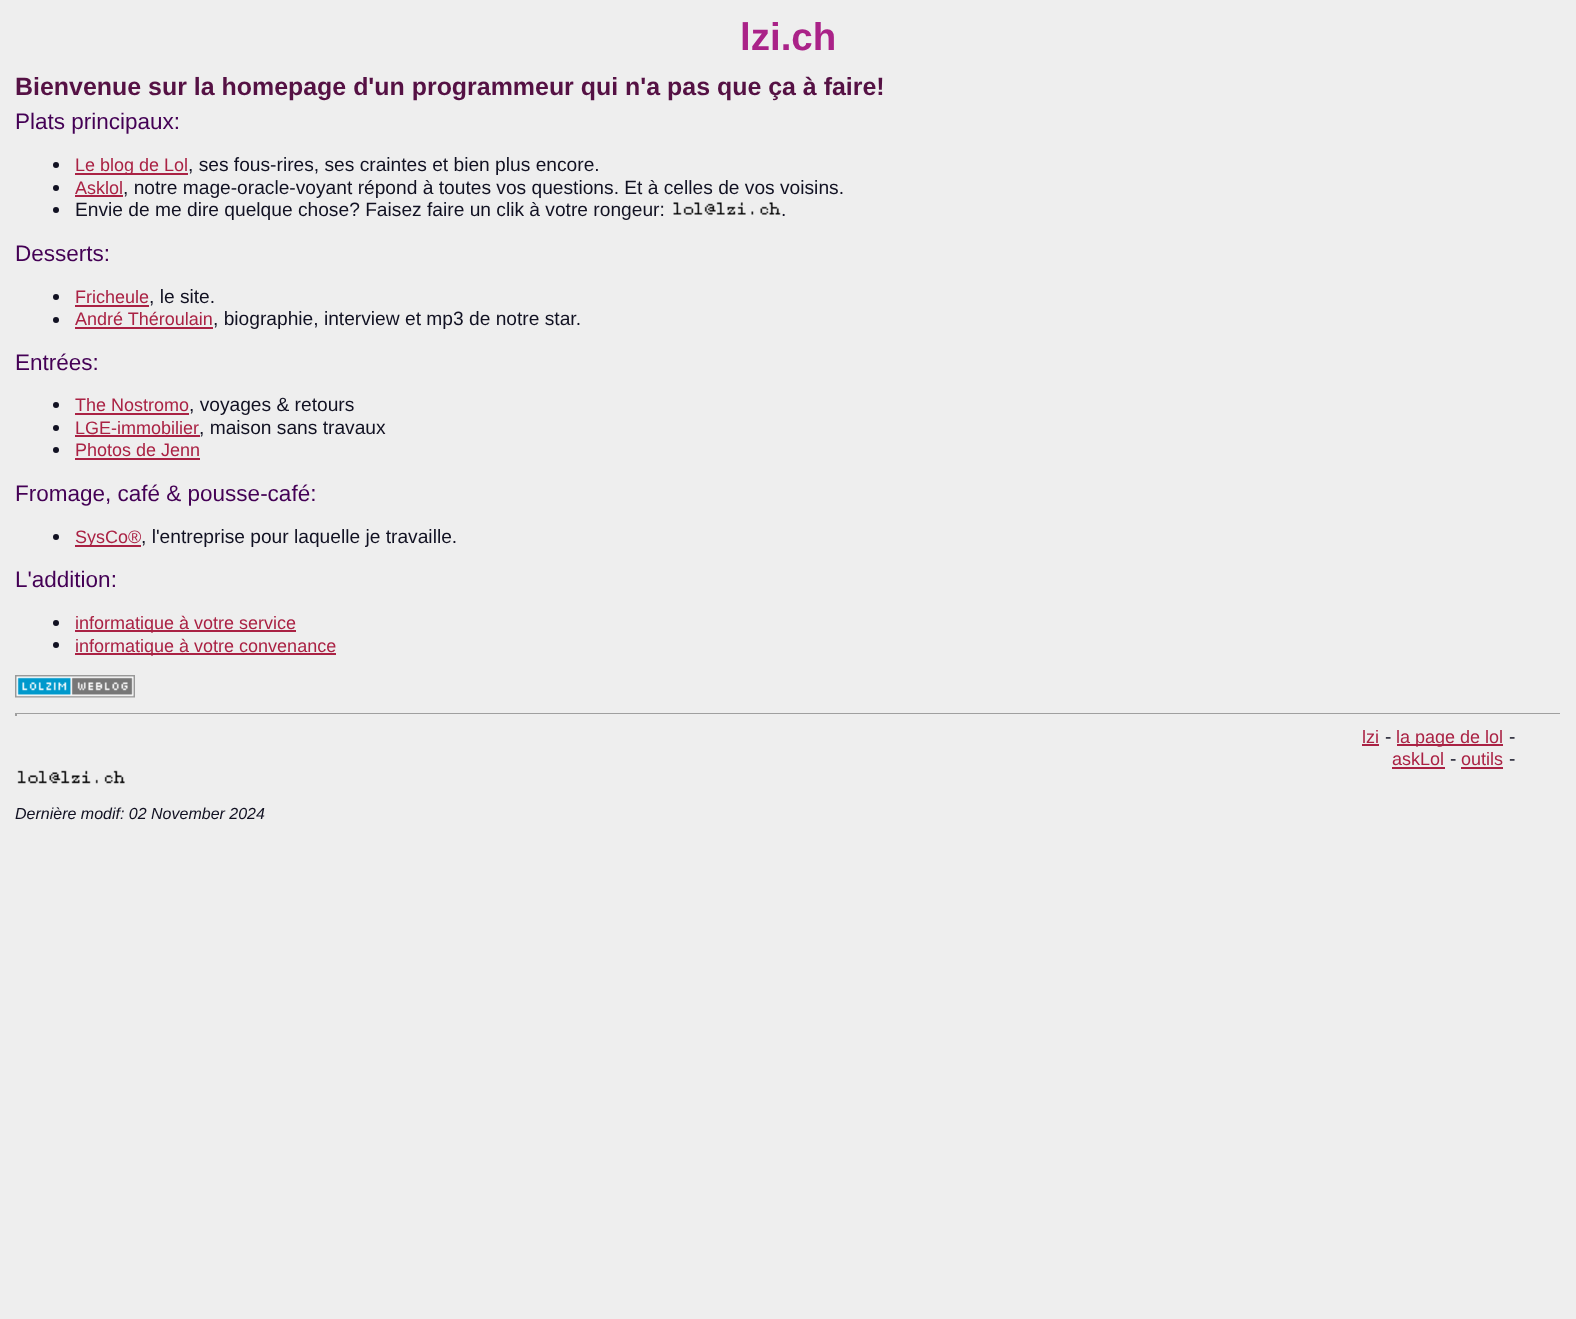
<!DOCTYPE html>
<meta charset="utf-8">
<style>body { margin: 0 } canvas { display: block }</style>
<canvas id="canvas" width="1576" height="1319"></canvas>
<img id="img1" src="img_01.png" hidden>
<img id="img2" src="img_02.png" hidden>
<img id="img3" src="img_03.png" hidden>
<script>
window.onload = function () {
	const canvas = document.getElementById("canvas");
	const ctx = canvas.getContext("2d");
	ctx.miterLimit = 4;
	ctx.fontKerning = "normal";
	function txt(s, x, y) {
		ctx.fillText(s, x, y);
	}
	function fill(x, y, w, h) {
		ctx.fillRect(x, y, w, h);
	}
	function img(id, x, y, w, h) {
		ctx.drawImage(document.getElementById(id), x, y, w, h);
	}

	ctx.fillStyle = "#EEEEEE";
	fill(0, 0, 1576, 1319);
	ctx.fillStyle = "#111122";
	ctx.beginPath();
	ctx.arc(56, 165, 3, 0, Math.PI * 2);
	ctx.fill();
	ctx.fillStyle = "#AA2244";
	fill(75, 173, 113, 2);
	ctx.fillStyle = "#111122";
	ctx.beginPath();
	ctx.arc(56, 188, 3, 0, Math.PI * 2);
	ctx.fill();
	ctx.fillStyle = "#AA2244";
	fill(75, 195, 48, 2);
	ctx.fillStyle = "#111122";
	ctx.beginPath();
	ctx.arc(56, 210, 3, 0, Math.PI * 2);
	ctx.fill();
	img("img1", 673, 202, 108, 13);
	ctx.beginPath();
	ctx.arc(56, 297, 3, 0, Math.PI * 2);
	ctx.fill();
	ctx.fillStyle = "#AA2244";
	fill(75, 305, 74, 2);
	ctx.fillStyle = "#111122";
	ctx.beginPath();
	ctx.arc(56, 320, 3, 0, Math.PI * 2);
	ctx.fill();
	ctx.fillStyle = "#AA2244";
	fill(75, 327, 138, 2);
	ctx.fillStyle = "#111122";
	ctx.beginPath();
	ctx.arc(56, 405, 3, 0, Math.PI * 2);
	ctx.fill();
	ctx.fillStyle = "#AA2244";
	fill(75, 413, 114, 2);
	ctx.fillStyle = "#111122";
	ctx.beginPath();
	ctx.arc(56, 428, 3, 0, Math.PI * 2);
	ctx.fill();
	ctx.fillStyle = "#AA2244";
	fill(75, 435, 125, 2);
	ctx.fillStyle = "#111122";
	ctx.beginPath();
	ctx.arc(56, 450, 3, 0, Math.PI * 2);
	ctx.fill();
	ctx.fillStyle = "#AA2244";
	fill(75, 458, 125, 2);
	ctx.fillStyle = "#111122";
	ctx.beginPath();
	ctx.arc(56, 537, 3, 0, Math.PI * 2);
	ctx.fill();
	ctx.fillStyle = "#AA2244";
	fill(75, 545, 66, 2);
	ctx.fillStyle = "#111122";
	ctx.beginPath();
	ctx.arc(56, 623, 3, 0, Math.PI * 2);
	ctx.fill();
	ctx.fillStyle = "#AA2244";
	fill(75, 630, 221, 2);
	ctx.fillStyle = "#111122";
	ctx.beginPath();
	ctx.arc(56, 645, 3, 0, Math.PI * 2);
	ctx.fill();
	ctx.fillStyle = "#AA2244";
	fill(75, 653, 261, 2);
	img("img2", 15, 675, 120, 23);
	ctx.fillStyle = "#9F9F9F";
	fill(15, 713, 1547, 1);
	ctx.fillStyle = "#EEEEEE";
	fill(1560, 713, 2, 3);
	ctx.fillStyle = "#9F9F9F";
	fill(15, 713, 2, 3);
	ctx.fillStyle = "#AA2244";
	fill(1362, 744, 17, 2);
	fill(1397, 744, 106, 2);
	fill(1392, 767, 53, 2);
	fill(1461, 767, 42, 2);
	img("img3", 17, 770, 108, 14);
	ctx.font = "bold 38.5px Liberation Sans";
	ctx.fillStyle = "#AA2288";
	txt("lzi.ch", 740, 50);
	ctx.font = "bold 24.95px Liberation Sans";
	ctx.fillStyle = "#551144";
	txt("Bienvenue sur la homepage d'un programmeur qui n'a pas que ça à faire!", 15, 95);
	ctx.font = "22.5px Liberation Sans";
	ctx.fillStyle = "#440055";
	txt("Plats principaux:", 15, 129);
	ctx.font = "18px Liberation Sans";
	ctx.fillStyle = "#AA2244";
	txt("Le blog de Lol", 75, 171);
	ctx.font = "19.2px Liberation Sans";
	ctx.fillStyle = "#111122";
	txt(", ses fous-rires, ses craintes et bien plus encore.", 188, 171);
	ctx.font = "18px Liberation Sans";
	ctx.fillStyle = "#AA2244";
	txt("Asklol", 75, 194);
	ctx.font = "19.2px Liberation Sans";
	ctx.fillStyle = "#111122";
	txt(", notre mage-oracle-voyant répond à toutes vos questions. Et à celles de vos voisins.", 123, 194);
	txt("Envie de me dire quelque chose? Faisez faire un clik à votre rongeur:", 75, 216);
	txt(".", 781, 216);
	ctx.font = "22.5px Liberation Sans";
	ctx.fillStyle = "#440055";
	txt("Desserts:", 15, 261);
	ctx.font = "18px Liberation Sans";
	ctx.fillStyle = "#AA2244";
	txt("Fricheule", 75, 303);
	ctx.font = "19.2px Liberation Sans";
	ctx.fillStyle = "#111122";
	txt(", le site.", 149, 303);
	ctx.font = "18px Liberation Sans";
	ctx.fillStyle = "#AA2244";
	txt("André Théroulain", 75, 325);
	ctx.font = "19.2px Liberation Sans";
	ctx.fillStyle = "#111122";
	txt(", biographie, interview et mp3 de notre star.", 213, 325);
	ctx.font = "22.5px Liberation Sans";
	ctx.fillStyle = "#440055";
	txt("Entrées:", 15, 370);
	ctx.font = "18px Liberation Sans";
	ctx.fillStyle = "#AA2244";
	txt("The Nostromo", 75, 411);
	ctx.font = "19.2px Liberation Sans";
	ctx.fillStyle = "#111122";
	txt(", voyages & retours", 189, 411);
	ctx.font = "18px Liberation Sans";
	ctx.fillStyle = "#AA2244";
	txt("LGE-immobilier", 75, 434);
	ctx.font = "19.2px Liberation Sans";
	ctx.fillStyle = "#111122";
	txt(", maison sans travaux", 199, 434);
	ctx.font = "18px Liberation Sans";
	ctx.fillStyle = "#AA2244";
	txt("Photos de Jenn", 75, 456);
	ctx.font = "22.5px Liberation Sans";
	ctx.fillStyle = "#440055";
	txt("Fromage, café & pousse-café:", 15, 501);
	ctx.font = "18px Liberation Sans";
	ctx.fillStyle = "#AA2244";
	txt("SysCo®", 75, 543);
	ctx.font = "19.2px Liberation Sans";
	ctx.fillStyle = "#111122";
	txt(", l'entreprise pour laquelle je travaille.", 141, 543);
	ctx.font = "22.5px Liberation Sans";
	ctx.fillStyle = "#440055";
	txt("L'addition:", 15, 587);
	ctx.font = "18px Liberation Sans";
	ctx.fillStyle = "#AA2244";
	txt("informatique à votre service", 75, 629);
	txt("informatique à votre convenance", 75, 652);
	txt("lzi", 1362, 743);
	ctx.font = "19.2px Liberation Sans";
	ctx.fillStyle = "#111122";
	txt("-", 1385, 743);
	ctx.font = "18px Liberation Sans";
	ctx.fillStyle = "#AA2244";
	txt("la page de lol", 1396, 743);
	ctx.font = "19.2px Liberation Sans";
	ctx.fillStyle = "#111122";
	txt("-", 1509, 743);
	ctx.font = "18px Liberation Sans";
	ctx.fillStyle = "#AA2244";
	txt("askLol", 1392, 765);
	ctx.font = "19.2px Liberation Sans";
	ctx.fillStyle = "#111122";
	txt("-", 1450, 765);
	ctx.font = "18px Liberation Sans";
	ctx.fillStyle = "#AA2244";
	txt("outils", 1461, 765);
	ctx.font = "19.2px Liberation Sans";
	ctx.fillStyle = "#111122";
	txt("-", 1509, 765);
	ctx.font = "italic 16px Liberation Sans";
	txt("Dernière modif: 02 November 2024", 15, 819);
};
</script>
